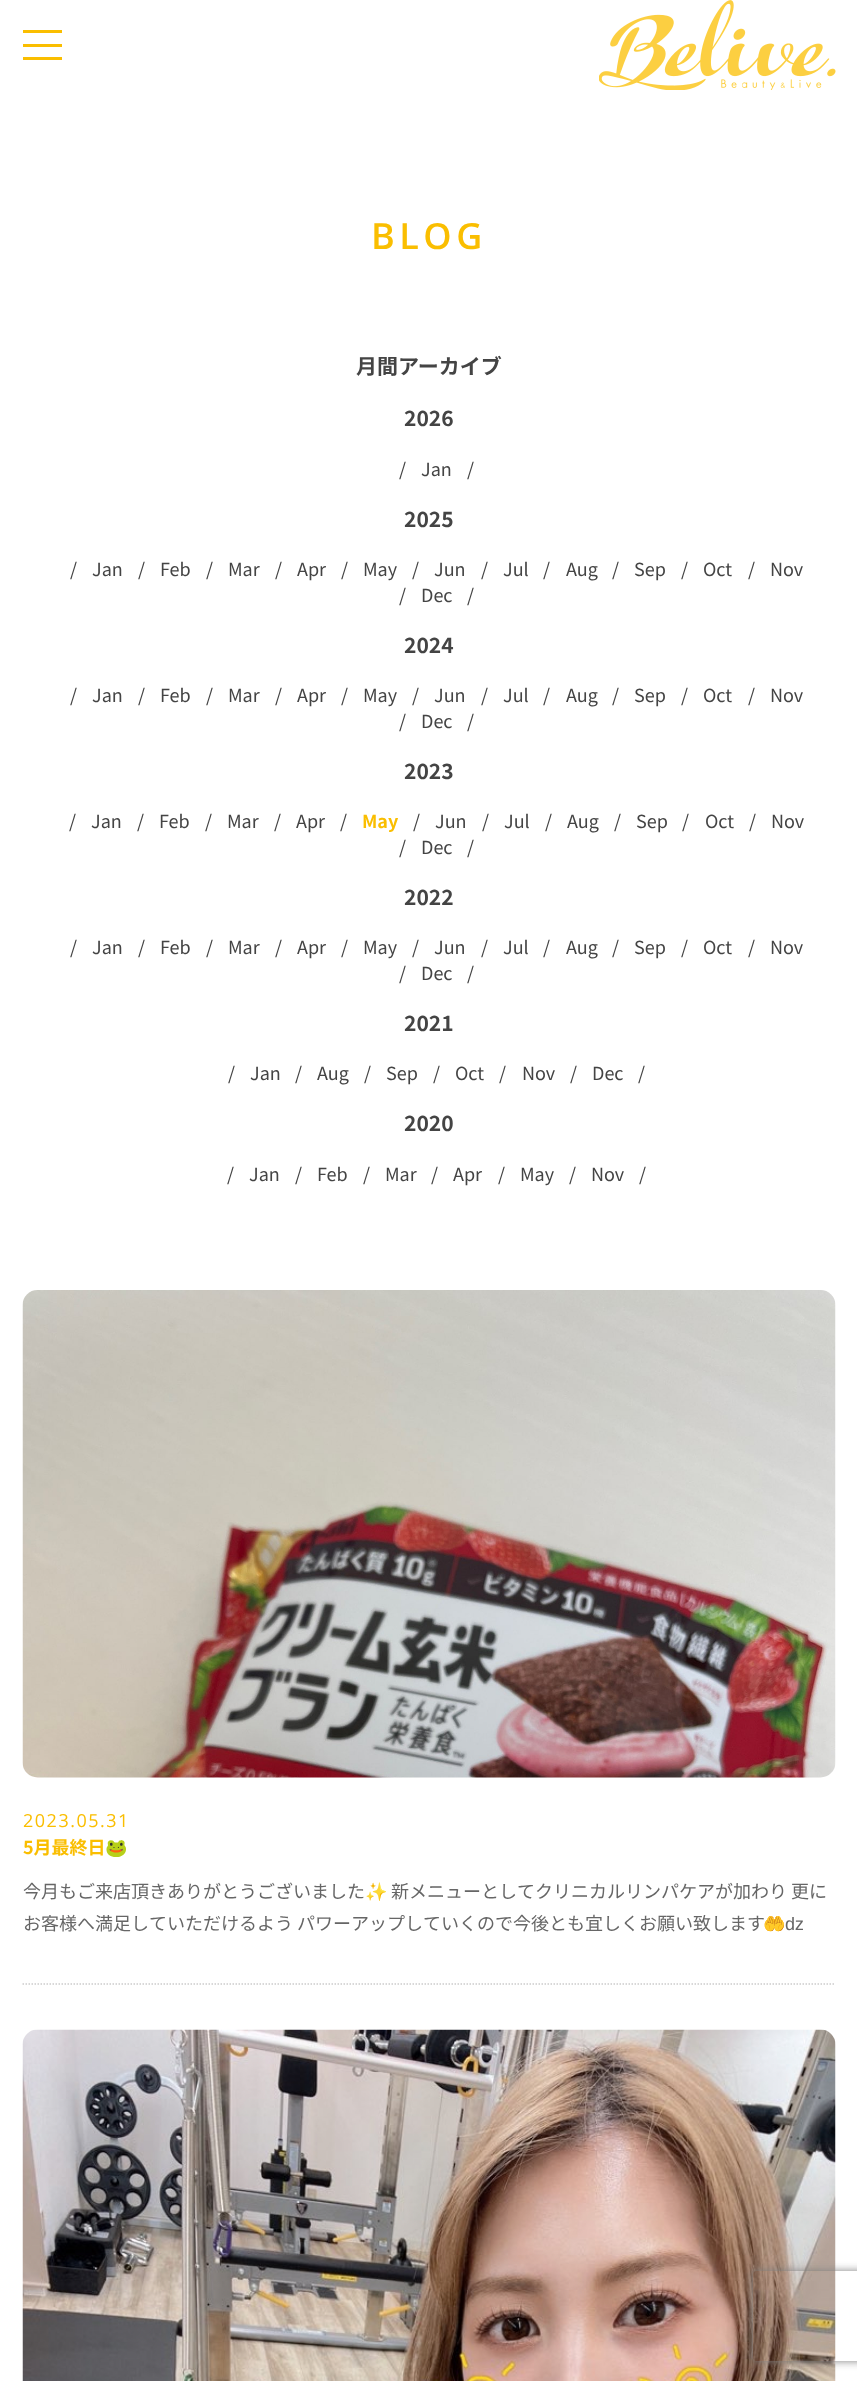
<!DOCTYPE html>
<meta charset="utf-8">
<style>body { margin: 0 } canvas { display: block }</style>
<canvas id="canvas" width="857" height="2381"></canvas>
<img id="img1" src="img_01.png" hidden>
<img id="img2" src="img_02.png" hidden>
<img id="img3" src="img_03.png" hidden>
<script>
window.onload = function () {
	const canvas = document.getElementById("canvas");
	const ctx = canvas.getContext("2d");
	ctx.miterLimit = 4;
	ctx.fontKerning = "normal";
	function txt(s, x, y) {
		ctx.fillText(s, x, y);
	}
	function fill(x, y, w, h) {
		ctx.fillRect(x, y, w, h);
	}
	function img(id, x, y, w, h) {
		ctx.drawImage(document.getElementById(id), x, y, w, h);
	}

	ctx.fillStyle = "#FFFFFF";
	fill(0, 0, 857, 2381);
	ctx.fillStyle = "#FABE00";
	fill(23, 30, 39, 3);
	fill(23, 44, 39, 3);
	fill(23, 57, 39, 3);
	img("img1", 599, 0, 237, 90);
	ctx.beginPath();
	ctx.moveTo(22.5, 1984);
	ctx.lineTo(835.5, 1984);
	ctx.strokeStyle = "#CCCCCC";
	ctx.lineWidth = 1.5;
	ctx.setLineDash([1.5, 1.5]);
	ctx.stroke();
	img("img2", 22, 1290, 814, 488);
	img("img3", 22, 2029, 814, 352);
	ctx.save();
	ctx.beginPath();
	ctx.moveTo(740, 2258);
	ctx.lineTo(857, 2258);
	ctx.lineTo(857, 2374);
	ctx.lineTo(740, 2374);
	ctx.closePath();
	ctx.moveTo(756, 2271);
	ctx.lineTo(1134, 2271);
	ctx.bezierCurveTo(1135.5, 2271, 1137, 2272.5, 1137, 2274);
	ctx.lineTo(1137, 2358);
	ctx.bezierCurveTo(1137, 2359.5, 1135.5, 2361, 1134, 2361);
	ctx.lineTo(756, 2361);
	ctx.bezierCurveTo(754.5, 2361, 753, 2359.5, 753, 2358);
	ctx.lineTo(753, 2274);
	ctx.bezierCurveTo(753, 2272.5, 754.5, 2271, 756, 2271);
	ctx.closePath();
	ctx.clip("evenodd");
	ctx.fillStyle = "#808080";
	ctx.filter = "blur(4px)";
	ctx.beginPath();
	ctx.roundRect(753, 2271, 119, 90, 3);
	ctx.fill();
	ctx.filter = "none";
	ctx.restore();
	ctx.letterSpacing = "4.5px";
	ctx.font = "600 36px Open Sans";
	txt("BLOG", 371, 249);
	ctx.letterSpacing = "0px";
	ctx.font = "bold 21px Noto Sans JP";
	ctx.fillStyle = "#444444";
	txt("月間アーカイブ", 356, 374);
	txt("2026", 404, 426);
	ctx.font = "18px Noto Sans JP";
	txt("/", 399, 476);
	txt("Jan", 421, 476);
	txt("/", 467, 476);
	ctx.font = "bold 21px Noto Sans JP";
	txt("2025", 404, 527);
	ctx.font = "18px Noto Sans JP";
	txt("/", 70, 576);
	txt("Jan", 92, 576);
	txt("/", 138, 576);
	txt("Feb", 160, 576);
	txt("/", 206, 576);
	txt("Mar", 228, 576);
	txt("/", 275, 576);
	txt("Apr", 297, 576);
	txt("/", 341, 576);
	txt("May", 363, 576);
	txt("/", 412, 576);
	txt("Jun", 434, 576);
	txt("/", 481, 576);
	txt("Jul", 503, 576);
	txt("/", 543, 576);
	txt("Aug", 566, 576);
	txt("/", 612, 576);
	txt("Sep", 634, 576);
	txt("/", 681, 576);
	txt("Oct", 703, 576);
	txt("/", 748, 576);
	txt("Nov", 770, 576);
	txt("/", 399, 602);
	txt("Dec", 421, 602);
	txt("/", 467, 602);
	ctx.font = "bold 21px Noto Sans JP";
	txt("2024", 404, 653);
	ctx.font = "18px Noto Sans JP";
	txt("/", 70, 702);
	txt("Jan", 92, 702);
	txt("/", 138, 702);
	txt("Feb", 160, 702);
	txt("/", 206, 702);
	txt("Mar", 228, 702);
	txt("/", 275, 702);
	txt("Apr", 297, 702);
	txt("/", 341, 702);
	txt("May", 363, 702);
	txt("/", 412, 702);
	txt("Jun", 434, 702);
	txt("/", 481, 702);
	txt("Jul", 503, 702);
	txt("/", 543, 702);
	txt("Aug", 566, 702);
	txt("/", 612, 702);
	txt("Sep", 634, 702);
	txt("/", 681, 702);
	txt("Oct", 703, 702);
	txt("/", 748, 702);
	txt("Nov", 770, 702);
	txt("/", 399, 728);
	txt("Dec", 421, 728);
	txt("/", 467, 728);
	ctx.font = "bold 21px Noto Sans JP";
	txt("2023", 404, 779);
	ctx.font = "18px Noto Sans JP";
	txt("/", 69, 828);
	txt("Jan", 91, 828);
	txt("/", 137, 828);
	txt("Feb", 159, 828);
	txt("/", 205, 828);
	txt("Mar", 227, 828);
	txt("/", 274, 828);
	txt("Apr", 296, 828);
	txt("/", 340, 828);
	ctx.font = "bold 18px Noto Sans JP";
	ctx.fillStyle = "#FABE00";
	txt("May", 362, 828);
	ctx.font = "18px Noto Sans JP";
	ctx.fillStyle = "#444444";
	txt("/", 413, 828);
	txt("Jun", 435, 828);
	txt("/", 482, 828);
	txt("Jul", 504, 828);
	txt("/", 545, 828);
	txt("Aug", 567, 828);
	txt("/", 614, 828);
	txt("Sep", 636, 828);
	txt("/", 682, 828);
	txt("Oct", 705, 828);
	txt("/", 749, 828);
	txt("Nov", 771, 828);
	txt("/", 399, 854);
	txt("Dec", 421, 854);
	txt("/", 467, 854);
	ctx.font = "bold 21px Noto Sans JP";
	txt("2022", 404, 905);
	ctx.font = "18px Noto Sans JP";
	txt("/", 70, 954);
	txt("Jan", 92, 954);
	txt("/", 138, 954);
	txt("Feb", 160, 954);
	txt("/", 206, 954);
	txt("Mar", 228, 954);
	txt("/", 275, 954);
	txt("Apr", 297, 954);
	txt("/", 341, 954);
	txt("May", 363, 954);
	txt("/", 412, 954);
	txt("Jun", 434, 954);
	txt("/", 481, 954);
	txt("Jul", 503, 954);
	txt("/", 543, 954);
	txt("Aug", 566, 954);
	txt("/", 612, 954);
	txt("Sep", 634, 954);
	txt("/", 681, 954);
	txt("Oct", 703, 954);
	txt("/", 748, 954);
	txt("Nov", 770, 954);
	txt("/", 399, 980);
	txt("Dec", 421, 980);
	txt("/", 467, 980);
	ctx.font = "bold 21px Noto Sans JP";
	txt("2021", 404, 1031);
	ctx.font = "18px Noto Sans JP";
	txt("/", 228, 1080);
	txt("Jan", 250, 1080);
	txt("/", 295, 1080);
	txt("Aug", 317, 1080);
	txt("/", 364, 1080);
	txt("Sep", 386, 1080);
	txt("/", 433, 1080);
	txt("Oct", 455, 1080);
	txt("/", 499, 1080);
	txt("Nov", 522, 1080);
	txt("/", 570, 1080);
	txt("Dec", 592, 1080);
	txt("/", 638, 1080);
	ctx.font = "bold 21px Noto Sans JP";
	txt("2020", 404, 1131);
	ctx.font = "18px Noto Sans JP";
	txt("/", 227, 1181);
	txt("Jan", 249, 1181);
	txt("/", 295, 1181);
	txt("Feb", 317, 1181);
	txt("/", 363, 1181);
	txt("Mar", 385, 1181);
	txt("/", 431, 1181);
	txt("Apr", 453, 1181);
	txt("/", 498, 1181);
	txt("May", 520, 1181);
	txt("/", 569, 1181);
	txt("Nov", 591, 1181);
	txt("/", 639, 1181);
	ctx.letterSpacing = "1.5px";
	ctx.font = "18px Open Sans";
	ctx.fillStyle = "#FABE00";
	txt("2023.05.31", 23, 1827);
	ctx.letterSpacing = "0px";
	ctx.font = "bold 18px Noto Sans JP";
	txt("5月最終日", 23, 1854);
	ctx.font = "bold 18px Noto Color Emoji";
	txt("🐸", 105, 1854);
	ctx.font = "18px Noto Sans JP";
	ctx.fillStyle = "#666666";
	txt("今月もご来店頂きありがとうございました", 23, 1898);
	ctx.font = "18px Noto Color Emoji";
	txt("✨", 365, 1898);
	ctx.font = "18px Noto Sans JP";
	txt("新メニューとしてクリニカルリンパケアが加わり 更に", 391, 1898);
	txt("お客様へ満足していただけるよう パワーアップしていくので今後とも宜しくお願い致します", 23, 1930);
	ctx.font = "18px Noto Color Emoji";
	txt("🤲", 763, 1930);
	ctx.font = "18px Liberation Sans";
	txt("ǳ", 785, 1930);
};
</script>
